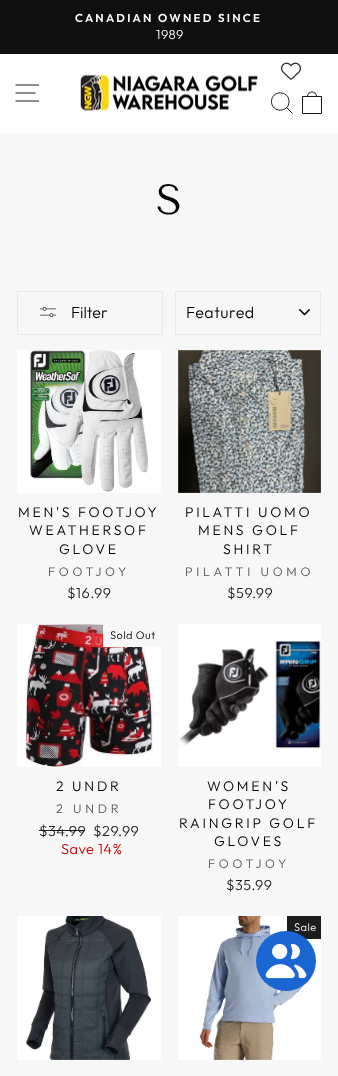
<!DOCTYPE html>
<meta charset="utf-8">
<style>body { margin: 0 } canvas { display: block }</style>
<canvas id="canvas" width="338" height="1076"></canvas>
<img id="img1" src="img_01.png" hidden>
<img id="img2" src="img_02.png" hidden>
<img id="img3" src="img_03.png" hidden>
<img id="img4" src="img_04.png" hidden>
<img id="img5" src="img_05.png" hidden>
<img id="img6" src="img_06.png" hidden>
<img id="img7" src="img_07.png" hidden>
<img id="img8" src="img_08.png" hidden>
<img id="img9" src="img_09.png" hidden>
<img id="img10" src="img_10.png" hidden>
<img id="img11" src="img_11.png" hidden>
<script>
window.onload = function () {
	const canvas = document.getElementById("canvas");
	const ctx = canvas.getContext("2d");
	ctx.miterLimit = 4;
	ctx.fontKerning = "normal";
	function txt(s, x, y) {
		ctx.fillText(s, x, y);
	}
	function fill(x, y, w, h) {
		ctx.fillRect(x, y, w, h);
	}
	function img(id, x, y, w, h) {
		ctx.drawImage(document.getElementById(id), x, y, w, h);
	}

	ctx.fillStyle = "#F7F7F7";
	fill(0, 0, 338, 1076);
	ctx.fillStyle = "#0F0F0F";
	fill(0, 0, 338, 54);
	ctx.fillStyle = "#FFFFFF";
	fill(0, 54, 338, 79);
	ctx.beginPath();
	ctx.moveTo(15.5, 85);
	ctx.lineTo(39, 85);
	ctx.moveTo(15.5, 93);
	ctx.lineTo(35.5, 93);
	ctx.moveTo(15.5, 101);
	ctx.lineTo(39, 101);
	ctx.strokeStyle = "#000000";
	ctx.lineWidth = 0.9;
	ctx.stroke();
	img("img1", 80, 74, 178, 37);
	img("img2", 281, 62, 20, 18);
	ctx.beginPath();
	ctx.moveTo(289, 101.5);
	ctx.bezierCurveTo(289, 113, 271.5, 113, 271.5, 101.5);
	ctx.bezierCurveTo(271.5, 90, 289, 90, 289, 101.5);
	ctx.closePath();
	ctx.moveTo(292.5, 113.5);
	ctx.lineTo(286.5, 107.5);
	ctx.stroke();
	ctx.beginPath();
	ctx.moveTo(302.5, 96.5);
	ctx.lineTo(321.5, 96.5);
	ctx.lineTo(321.5, 113.5);
	ctx.lineTo(302.5, 113.5);
	ctx.closePath();
	ctx.moveTo(307.5, 96.5);
	ctx.bezierCurveTo(307.5, 90.5, 316.5, 90.5, 316.5, 96.5);
	ctx.stroke();
	ctx.strokeStyle = "#E8E8E1";
	ctx.lineWidth = 1;
	ctx.strokeRect(17.5, 291.5, 145, 43);
	img("img3", 39, 307, 18, 10);
	img("img4", 299, 309, 11, 7);
	ctx.strokeRect(175.5, 291.5, 145, 43);
	fill(17, 350, 144, 143);
	img("img5", 29, 350, 119, 142);
	img("img6", 178, 350, 143, 143);
	fill(17, 624, 144, 143);
	img("img7", 25, 624, 128, 143);
	ctx.fillStyle = "#F7F7F7";
	fill(103, 624, 58, 23);
	ctx.fillStyle = "#1C1D1D";
	fill(39, 830, 46, 1);
	ctx.fillStyle = "#FFFFFF";
	fill(178, 624, 143, 143);
	img("img8", 178, 641, 143, 108);
	fill(17, 916, 144, 144);
	img("img9", 25, 916, 127, 144);
	fill(178, 916, 143, 144);
	img("img10", 200, 916, 105, 144);
	ctx.fillStyle = "#1C1D1D";
	fill(287, 916, 34, 23);
	ctx.letterSpacing = "2.25px";
	ctx.font = "600 11.5px Outfit";
	ctx.fillStyle = "#FFFFFF";
	txt("CANADIAN OWNED SINCE", 75, 22);
	ctx.letterSpacing = "0.5px";
	ctx.font = "300 13px Outfit";
	txt("1989", 156, 39);
	ctx.letterSpacing = "0px";
	ctx.font = "42px Tenor Sans";
	ctx.fillStyle = "#000000";
	txt("S", 156, 214);
	ctx.font = "300 16px Outfit";
	txt("Filter", 71, 318);
	ctx.letterSpacing = "0.5px";
	txt("Featured", 186, 318);
	ctx.letterSpacing = "2.75px";
	ctx.font = "300 14px Outfit";
	txt("MEN'S FOOTJOY", 18, 517);
	txt("WEATHERSOF", 29, 535);
	txt("GLOVE", 59, 554);
	ctx.letterSpacing = "3.75px";
	ctx.font = "300 12.5px Outfit";
	ctx.fillStyle = "#565656";
	txt("FOOTJOY", 48, 576);
	ctx.letterSpacing = "0.5px";
	ctx.font = "300 14.5px Outfit";
	ctx.fillStyle = "#1C1D1D";
	txt("$16.99", 67, 598);
	ctx.letterSpacing = "2.75px";
	ctx.font = "300 14px Outfit";
	ctx.fillStyle = "#000000";
	txt("PILATTI UOMO", 185, 517);
	txt("MENS GOLF", 198, 535);
	txt("SHIRT", 223, 554);
	ctx.letterSpacing = "3.75px";
	ctx.font = "300 12.5px Outfit";
	ctx.fillStyle = "#565656";
	txt("PILATTI UOMO", 185, 576);
	ctx.letterSpacing = "0.5px";
	ctx.font = "300 14.5px Outfit";
	ctx.fillStyle = "#1C1D1D";
	txt("$59.99", 227, 598);
	ctx.font = "300 11px Outfit";
	ctx.fillStyle = "#000000";
	txt("Sold Out", 110, 639);
	ctx.letterSpacing = "2.75px";
	ctx.font = "300 14px Outfit";
	txt("2 UNDR", 56, 791);
	ctx.letterSpacing = "3.75px";
	ctx.font = "300 12.5px Outfit";
	ctx.fillStyle = "#565656";
	txt("2 UNDR", 56, 813);
	ctx.letterSpacing = "0.5px";
	ctx.font = "300 14.5px Outfit";
	ctx.fillStyle = "#1C1D1D";
	txt("$34.99", 39, 836);
	txt("$29.99", 93, 836);
	ctx.fillStyle = "#C20000";
	txt("Save 14%", 61, 854);
	ctx.letterSpacing = "2.75px";
	ctx.font = "300 14px Outfit";
	ctx.fillStyle = "#000000";
	txt("WOMEN'S", 207, 791);
	txt("FOOTJOY", 208, 809);
	txt("RAINGRIP GOLF", 179, 828);
	txt("GLOVES", 214, 846);
	ctx.letterSpacing = "3.75px";
	ctx.font = "300 12.5px Outfit";
	ctx.fillStyle = "#565656";
	txt("FOOTJOY", 208, 868);
	ctx.letterSpacing = "0.5px";
	ctx.font = "300 14.5px Outfit";
	ctx.fillStyle = "#1C1D1D";
	txt("$35.99", 226, 890);
	ctx.font = "300 11px Outfit";
	ctx.fillStyle = "#FFFFFF";
	txt("Sale", 294, 931);
	ctx.fillStyle = "#1A66D2";
	ctx.beginPath();
	ctx.arc(286, 961, 30, 0, Math.PI * 2);
	ctx.fill();
	img("img11", 265, 943, 42, 36);
};
</script>
